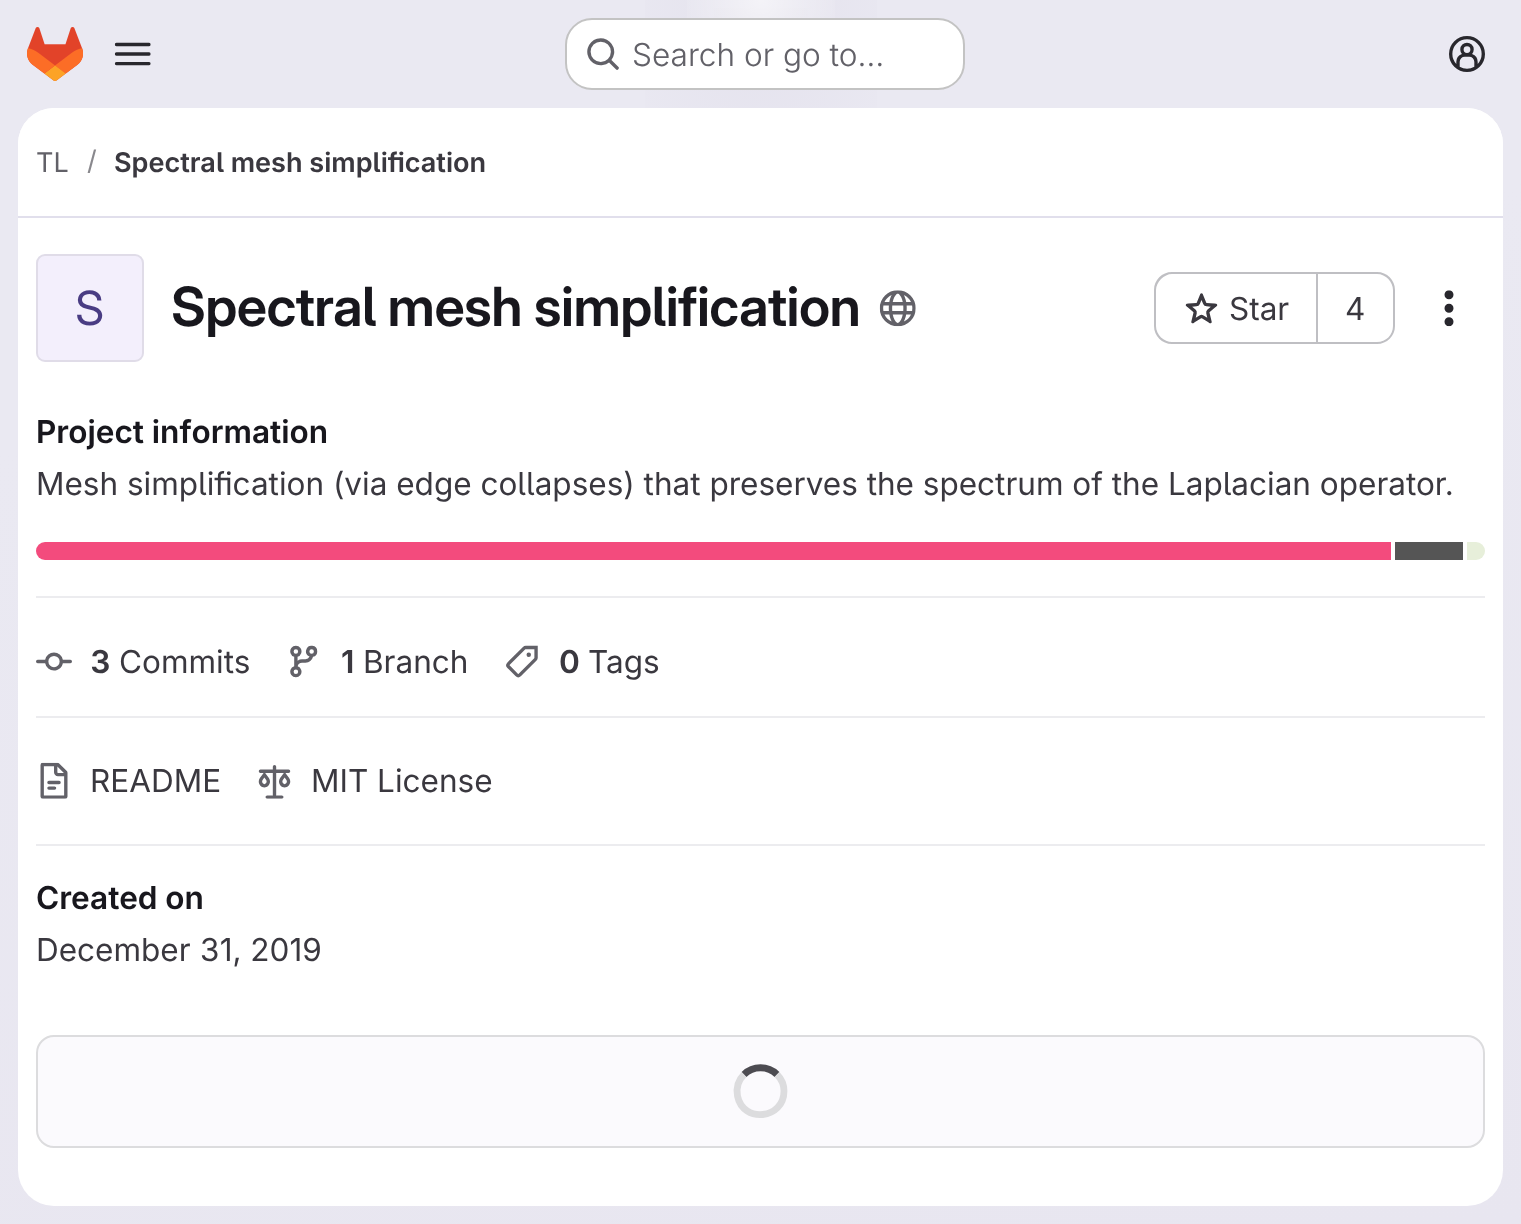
<!DOCTYPE html>
<meta charset="utf-8">
<style>body { margin: 0 } canvas { display: block }</style>
<canvas id="canvas" width="1521" height="1224"></canvas>
<img id="img1" src="img_01.png" hidden>
<img id="img2" src="img_02.png" hidden>
<img id="img3" src="img_03.png" hidden>
<img id="img4" src="img_04.png" hidden>
<img id="img5" src="img_05.png" hidden>
<img id="img6" src="img_06.png" hidden>
<img id="img7" src="img_07.png" hidden>
<img id="img8" src="img_08.png" hidden>
<img id="img9" src="img_09.png" hidden>
<img id="img10" src="img_10.png" hidden>
<img id="img11" src="img_11.png" hidden>
<img id="img12" src="img_12.png" hidden>
<script>
window.onload = function () {
	const canvas = document.getElementById("canvas");
	const ctx = canvas.getContext("2d");
	ctx.miterLimit = 4;
	ctx.fontKerning = "normal";
	function txt(s, x, y) {
		ctx.fillText(s, x, y);
	}
	function fill(x, y, w, h) {
		ctx.fillRect(x, y, w, h);
	}
	function round(x, y, w, h, r) {
		ctx.beginPath();
		ctx.roundRect(x, y, w, h, r);
		ctx.fill();
	}
	function img(id, x, y, w, h) {
		ctx.drawImage(document.getElementById(id), x, y, w, h);
	}
	let gradient;

	ctx.fillStyle = "#FFFFFF";
	fill(0, 0, 1521, 1224);
	gradient = ctx.createLinearGradient(888, 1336, 633, -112);
	gradient.addColorStop(0, "#E8E6F0");
	gradient.addColorStop(0.7, "#EAE9F2");
	ctx.fillStyle = gradient;
	fill(0, 0, 1521, 1224);
	gradient = ctx.createRadialGradient(761, 0, 0, 761, 0, 761);
	gradient.addColorStop(0, "#E4E2ED");
	gradient.addColorStop(0.21, "rgba(228, 226, 237, 0)");
	ctx.fillStyle = gradient;
	ctx.beginPath();
	ctx.rect(645, 0, 232, 108);
	ctx.save();
	ctx.clip();
	ctx.scale(1, 1224 / 761);
	ctx.fillRect(0, 0, 1521, 761);
	ctx.restore();
	gradient = ctx.createRadialGradient(761, 0, 0, 761, 0, 761);
	gradient.addColorStop(0, "#E4E2EC");
	gradient.addColorStop(0.15, "rgba(228, 226, 236, 0)");
	ctx.fillStyle = gradient;
	ctx.beginPath();
	ctx.rect(714, 8, 94, 67);
	ctx.save();
	ctx.clip();
	ctx.scale(1, 1224 / 761);
	ctx.fillRect(0, 0, 1521, 761);
	ctx.restore();
	gradient = ctx.createRadialGradient(761, 0, 0, 761, 0, 1441);
	gradient.addColorStop(0, "rgba(255, 255, 255, 0.6)");
	gradient.addColorStop(0.06, "rgba(255, 255, 255, 0)");
	ctx.fillStyle = gradient;
	fill(687, 0, 148, 18);
	img("img1", 27, 27, 56, 54);
	img("img2", 114, 42, 37, 24);
	ctx.fillStyle = "#FFFFFF";
	round(565, 18, 400, 72, 27);
	ctx.beginPath();
	ctx.roundRect(566, 19, 398, 70, 26);
	ctx.strokeStyle = "rgba(5, 5, 6, 0.24)";
	ctx.lineWidth = 2;
	ctx.stroke();
	img("img3", 587, 38, 32, 32);
	img("img4", 1449, 36, 36, 36);
	round(18, 108, 1485, 1098, 36);
	ctx.beginPath();
	ctx.roundRect(18, 108, 1485, 110, [36, 36, 0, 0]);
	ctx.fill();
	ctx.fillStyle = "#E1DFEC";
	fill(18, 216, 1485, 2);
	ctx.fillStyle = "#F3EFFC";
	round(36, 254, 108, 108, 9);
	ctx.beginPath();
	ctx.roundRect(37, 255, 106, 106, 8);
	ctx.strokeStyle = "rgba(5, 5, 6, 0.08)";
	ctx.stroke();
	img("img5", 879, 290, 37, 37);
	ctx.fillStyle = "#BFBFC3";
	ctx.beginPath();
	ctx.moveTo(1172, 272);
	ctx.lineTo(1316, 272);
	ctx.lineTo(1316, 344);
	ctx.lineTo(1172, 344);
	ctx.bezierCurveTo(1162, 344, 1154, 336, 1154, 326);
	ctx.lineTo(1154, 290);
	ctx.bezierCurveTo(1154, 280, 1162, 272, 1172, 272);
	ctx.closePath();
	ctx.moveTo(1172, 274);
	ctx.lineTo(1316, 274);
	ctx.lineTo(1316, 342);
	ctx.lineTo(1172, 342);
	ctx.bezierCurveTo(1164, 342, 1156, 335, 1156, 326);
	ctx.lineTo(1156, 290);
	ctx.bezierCurveTo(1156, 282, 1164, 274, 1172, 274);
	ctx.closePath();
	ctx.fill("evenodd");
	img("img6", 1185, 293, 33, 31);
	ctx.beginPath();
	ctx.moveTo(1318, 272);
	ctx.lineTo(1377, 272);
	ctx.bezierCurveTo(1387, 272, 1395, 280, 1395, 290);
	ctx.lineTo(1395, 326);
	ctx.bezierCurveTo(1395, 336, 1387, 344, 1377, 344);
	ctx.lineTo(1318, 344);
	ctx.closePath();
	ctx.moveTo(1318, 274);
	ctx.lineTo(1377, 274);
	ctx.bezierCurveTo(1386, 274, 1393, 282, 1393, 290);
	ctx.lineTo(1393, 326);
	ctx.bezierCurveTo(1393, 335, 1386, 342, 1377, 342);
	ctx.lineTo(1318, 342);
	ctx.closePath();
	ctx.fill("evenodd");
	fill(1316, 272, 2, 72);
	img("img7", 1444, 290, 10, 37);
	ctx.fillStyle = "#ECECEF";
	fill(36, 596, 1449, 2);
	ctx.fillStyle = "#F34B7D";
	ctx.beginPath();
	ctx.roundRect(36, 542, 1355, 18, [9, 0, 0, 9]);
	ctx.fill();
	ctx.fillStyle = "#555555";
	fill(1395, 542, 68, 18);
	ctx.fillStyle = "#E7EFDA";
	ctx.beginPath();
	ctx.roundRect(1467, 542, 18, 18, [0, 9, 9, 0]);
	ctx.fill();
	ctx.fillStyle = "#ECECEF";
	fill(36, 716, 1449, 2);
	img("img8", 36, 652, 36, 19);
	img("img9", 290, 645, 28, 33);
	img("img10", 506, 645, 32, 33);
	fill(36, 844, 1449, 2);
	img("img11", 40, 762, 28, 37);
	img("img12", 258, 765, 33, 34);
	ctx.fillStyle = "#FBFAFD";
	ctx.beginPath();
	ctx.roundRect(37, 1036, 1447, 111, 17);
	ctx.fill();
	ctx.strokeStyle = "#DCDCDE";
	ctx.stroke();
	ctx.beginPath();
	ctx.moveTo(744, 1074.5);
	ctx.bezierCurveTo(753, 1065.5, 768, 1065.5, 777, 1074.5);
	ctx.strokeStyle = "#4C4B51";
	ctx.lineWidth = 6.8;
	ctx.stroke();
	ctx.beginPath();
	ctx.moveTo(777, 1074.5);
	ctx.bezierCurveTo(781.5, 1079, 784, 1085, 784, 1091);
	ctx.bezierCurveTo(784, 1119.5, 743, 1123.5, 737.5, 1096);
	ctx.bezierCurveTo(736, 1088, 738.5, 1080, 744, 1074.5);
	ctx.strokeStyle = "#DCDCDE";
	ctx.stroke();
	ctx.font = "300 31.5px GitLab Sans";
	ctx.fillStyle = "#626168";
	txt("Search or go to…", 632, 66);
	ctx.font = "27px GitLab Sans";
	txt("TL", 36, 172);
	ctx.fillStyle = "#89888D";
	txt("/", 87, 170);
	ctx.font = "600 27px 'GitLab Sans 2'";
	ctx.fillStyle = "#3A383F";
	txt("Spectral mesh simplification", 114, 172);
	ctx.font = "47px 'GitLab Sans 2'";
	ctx.fillStyle = "#493C83";
	txt("S", 75, 325);
	ctx.letterSpacing = "-0.55px";
	ctx.font = "600 54px GitLab Sans";
	ctx.fillStyle = "#18171D";
	txt("Spectral mesh simplification", 171, 326);
	ctx.letterSpacing = "0px";
	ctx.font = "31.5px GitLab Sans";
	ctx.fillStyle = "#3A383F";
	txt("Star", 1229, 320);
	txt("4", 1345, 320);
	ctx.font = "600 31.5px 'GitLab Sans 2'";
	ctx.fillStyle = "#18171D";
	txt("Project information", 36, 443);
	ctx.font = "31.5px GitLab Sans";
	ctx.fillStyle = "#3A383F";
	txt("Mesh simplification (via edge collapses) that preserves the spectrum of the Laplacian operator.", 36, 495);
	ctx.font = "600 31.5px 'GitLab Sans 2'";
	txt("3", 90, 673);
	ctx.font = "31.5px GitLab Sans";
	txt("Commits", 119, 673);
	ctx.font = "600 31.5px 'GitLab Sans 2'";
	txt("1", 341, 673);
	ctx.font = "31.5px GitLab Sans";
	txt("Branch", 363, 673);
	ctx.font = "600 31.5px 'GitLab Sans 2'";
	txt("0", 559, 673);
	ctx.font = "31.5px GitLab Sans";
	txt("Tags", 588, 673);
	txt("README", 90, 792);
	txt("MIT License", 311, 792);
	ctx.font = "600 31.5px 'GitLab Sans 2'";
	ctx.fillStyle = "#18171D";
	txt("Created on", 36, 909);
	ctx.font = "31.5px GitLab Sans";
	ctx.fillStyle = "#3A383F";
	txt("December 31, 2019", 36, 961);
};
</script>
